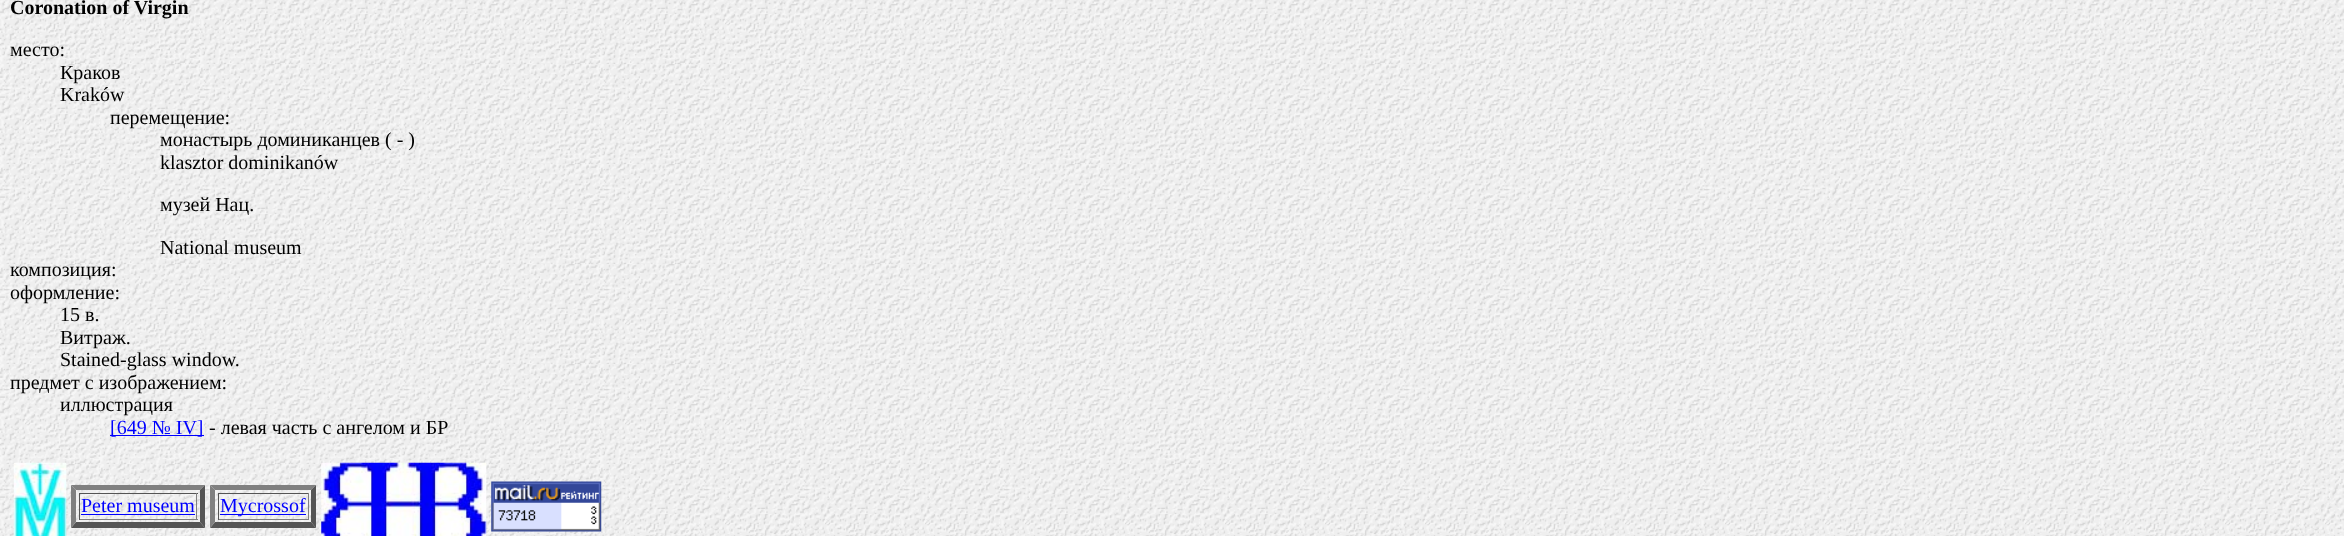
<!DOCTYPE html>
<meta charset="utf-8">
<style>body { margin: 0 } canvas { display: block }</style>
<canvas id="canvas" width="2344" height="536"></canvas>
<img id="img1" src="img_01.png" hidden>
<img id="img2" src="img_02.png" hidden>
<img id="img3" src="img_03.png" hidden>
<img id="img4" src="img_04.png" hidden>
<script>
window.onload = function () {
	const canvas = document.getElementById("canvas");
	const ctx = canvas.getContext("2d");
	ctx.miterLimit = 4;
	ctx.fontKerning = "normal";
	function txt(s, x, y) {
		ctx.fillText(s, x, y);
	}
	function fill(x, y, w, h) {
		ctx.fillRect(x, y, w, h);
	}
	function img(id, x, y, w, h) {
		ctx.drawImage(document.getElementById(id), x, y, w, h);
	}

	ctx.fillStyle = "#FFFFFF";
	fill(0, 0, 2344, 536);
	img("img1", 0, 0, 2344, 536);
	ctx.fillStyle = "#0000FF";
	fill(110, 435, 94, 1);
	img("img2", 13, 462, 54, 74);
	ctx.fillStyle = "#808080";
	ctx.beginPath();
	ctx.moveTo(71, 485);
	ctx.lineTo(205, 485);
	ctx.lineTo(200, 490);
	ctx.lineTo(76, 490);
	ctx.closePath();
	ctx.fill();
	ctx.fillStyle = "#555555";
	ctx.beginPath();
	ctx.moveTo(205, 485);
	ctx.lineTo(205, 528);
	ctx.lineTo(200, 522);
	ctx.lineTo(200, 490);
	ctx.closePath();
	ctx.fill();
	ctx.beginPath();
	ctx.moveTo(205, 528);
	ctx.lineTo(71, 528);
	ctx.lineTo(76, 522);
	ctx.lineTo(200, 522);
	ctx.closePath();
	ctx.fill();
	ctx.fillStyle = "#808080";
	ctx.beginPath();
	ctx.moveTo(71, 528);
	ctx.lineTo(71, 485);
	ctx.lineTo(76, 490);
	ctx.lineTo(76, 522);
	ctx.closePath();
	ctx.fill();
	ctx.fillStyle = "#555555";
	fill(79, 493, 119, 1);
	ctx.fillStyle = "#808080";
	fill(196, 493, 1, 27);
	fill(79, 519, 119, 1);
	ctx.fillStyle = "#555555";
	fill(79, 493, 1, 27);
	ctx.fillStyle = "#0000FF";
	fill(81, 514, 114, 1);
	ctx.fillStyle = "#808080";
	ctx.beginPath();
	ctx.moveTo(210, 485);
	ctx.lineTo(316, 485);
	ctx.lineTo(311, 490);
	ctx.lineTo(215, 490);
	ctx.closePath();
	ctx.fill();
	ctx.fillStyle = "#555555";
	ctx.beginPath();
	ctx.moveTo(316, 485);
	ctx.lineTo(316, 528);
	ctx.lineTo(311, 522);
	ctx.lineTo(311, 490);
	ctx.closePath();
	ctx.fill();
	ctx.beginPath();
	ctx.moveTo(316, 528);
	ctx.lineTo(210, 528);
	ctx.lineTo(215, 522);
	ctx.lineTo(311, 522);
	ctx.closePath();
	ctx.fill();
	ctx.fillStyle = "#808080";
	ctx.beginPath();
	ctx.moveTo(210, 528);
	ctx.lineTo(210, 485);
	ctx.lineTo(215, 490);
	ctx.lineTo(215, 522);
	ctx.closePath();
	ctx.fill();
	ctx.fillStyle = "#555555";
	fill(218, 493, 91, 1);
	ctx.fillStyle = "#808080";
	fill(308, 493, 1, 27);
	fill(218, 519, 91, 1);
	ctx.fillStyle = "#555555";
	fill(218, 493, 1, 27);
	ctx.fillStyle = "#0000FF";
	fill(220, 514, 86, 1);
	img("img3", 321, 462, 166, 74);
	img("img4", 491, 481, 111, 51);
	ctx.font = "bold 20px Liberation Serif";
	ctx.fillStyle = "#000000";
	txt("Coronation of Virgin", 10, 14);
	ctx.font = "20px Liberation Serif";
	txt("место:", 10, 56);
	txt("Краков", 60, 79);
	txt("Kraków", 60, 101);
	txt("перемещение:", 110, 124);
	txt("монастырь доминиканцев ( - )", 160, 146);
	txt("klasztor dominikanów", 160, 169);
	txt("музей Нац.", 160, 211);
	txt("National museum", 160, 254);
	txt("композиция:", 10, 276);
	txt("оформление:", 10, 299);
	txt("15 в.", 60, 321);
	txt("Витраж.", 60, 344);
	txt("Stained-glass window.", 60, 366);
	txt("предмет с изображением:", 10, 389);
	txt("иллюстрация", 60, 411);
	ctx.fillStyle = "#0000FF";
	txt("[649 № IV]", 110, 434);
	ctx.fillStyle = "#000000";
	txt("- левая часть с ангелом и БР", 209, 434);
	ctx.fillStyle = "#0000FF";
	txt("Peter museum", 81, 512);
	txt("Mycrossof", 220, 512);
};
</script>
